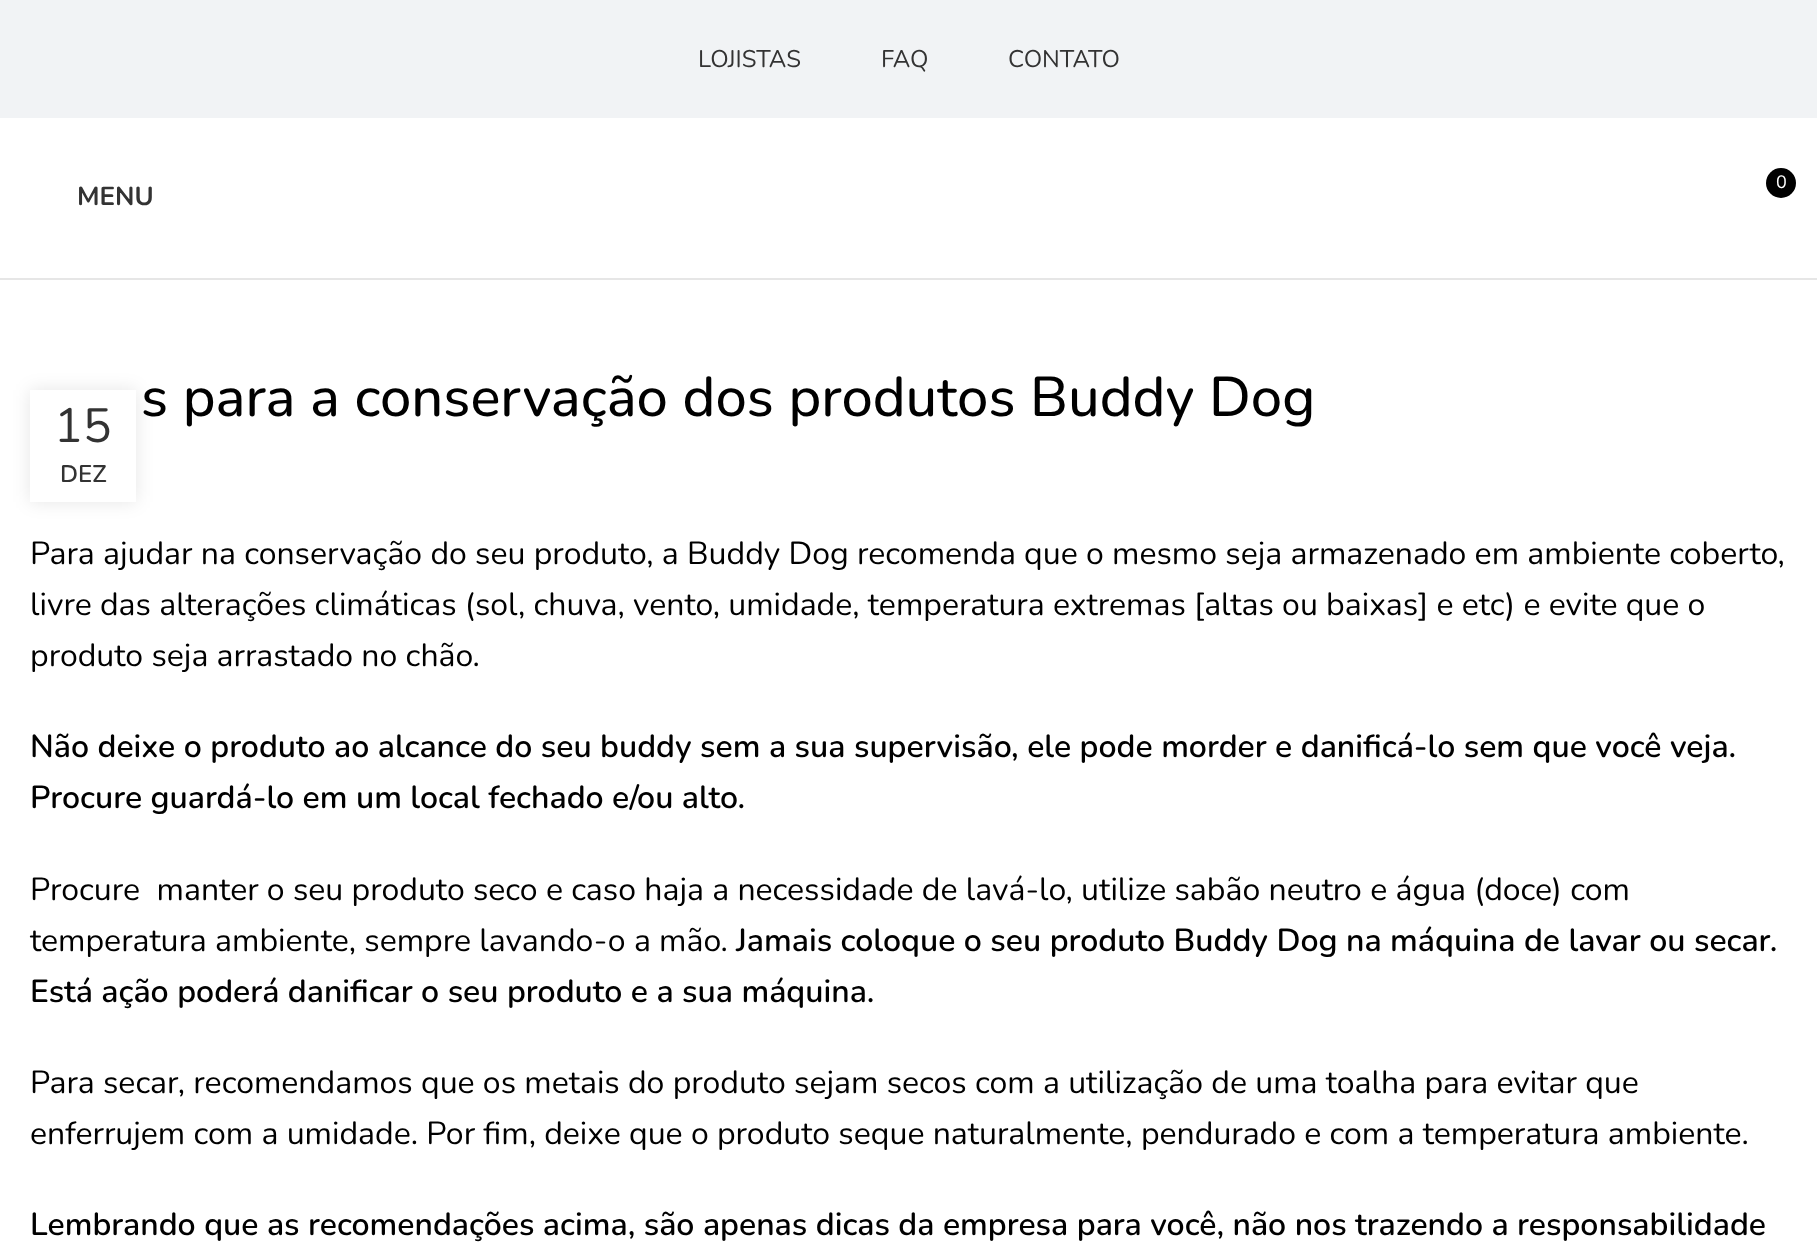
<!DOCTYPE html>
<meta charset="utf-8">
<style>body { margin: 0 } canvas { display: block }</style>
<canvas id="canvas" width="1817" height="1260"></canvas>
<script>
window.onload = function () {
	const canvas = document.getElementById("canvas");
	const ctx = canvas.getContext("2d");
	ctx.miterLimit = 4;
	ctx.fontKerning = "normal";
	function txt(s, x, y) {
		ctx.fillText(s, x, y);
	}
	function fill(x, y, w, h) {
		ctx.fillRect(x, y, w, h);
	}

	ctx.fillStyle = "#FFFFFF";
	fill(0, 0, 1817, 1260);
	ctx.fillStyle = "#F1F3F5";
	fill(0, 0, 1817, 118);
	ctx.fillStyle = "#E6E6E6";
	fill(0, 278, 1817, 2);
	ctx.fillStyle = "#000000";
	ctx.beginPath();
	ctx.arc(1781, 183, 15, 0, Math.PI * 2);
	ctx.fill();
	ctx.fillStyle = "rgba(0, 0, 0, 0.1)";
	ctx.filter = "blur(9px)";
	ctx.beginPath();
	ctx.rect(30, 390, 106, 112);
	ctx.fill();
	ctx.filter = "none";
	ctx.fillStyle = "#FFFFFF";
	fill(30, 390, 106, 112);
	ctx.font = "24px Nunito";
	ctx.fillStyle = "#333333";
	txt("LOJISTAS", 698, 67);
	txt("FAQ", 881, 67);
	txt("CONTATO", 1008, 67);
	ctx.font = "18px Nunito";
	ctx.fillStyle = "#FFFFFF";
	txt("0", 1776, 188);
	ctx.font = "bold 26px Nunito";
	ctx.fillStyle = "#333333";
	txt("MENU", 77, 205);
	ctx.font = "500 56px Nunito";
	ctx.fillStyle = "#000000";
	txt("s para a conservação dos produtos Buddy Dog", 141, 416);
	ctx.font = "48px Nunito";
	ctx.fillStyle = "#333333";
	txt("15", 54, 442);
	ctx.font = "600 24px Nunito";
	txt("DEZ", 60, 482);
	ctx.font = "32px Nunito";
	ctx.fillStyle = "#000000";
	txt("Para ajudar na conservação do seu produto, a Buddy Dog recomenda que o mesmo seja armazenado em ambiente coberto,", 30, 564);
	txt("livre das alterações climáticas (sol, chuva, vento, umidade, temperatura extremas [altas ou baixas] e etc) e evite que o", 30, 615);
	txt("produto seja arrastado no chão.", 30, 666);
	ctx.font = "600 32px Nunito";
	txt("Não deixe o produto ao alcance do seu buddy sem a sua supervisão, ele pode morder e danificá-lo sem que você veja.", 30, 757);
	txt("Procure guardá-lo em um local fechado e/ou alto.", 30, 808);
	ctx.font = "32px Nunito";
	txt("Procure  manter o seu produto seco e caso haja a necessidade de lavá-lo, utilize sabão neutro e água (doce) com", 30, 900);
	txt("temperatura ambiente, sempre lavando-o a mão.", 30, 951);
	ctx.font = "600 32px Nunito";
	txt("Jamais coloque o seu produto Buddy Dog na máquina de lavar ou secar.", 736, 951);
	txt("Está ação poderá danificar o seu produto e a sua máquina.", 30, 1002);
	ctx.font = "32px Nunito";
	txt("Para secar, recomendamos que os metais do produto sejam secos com a utilização de uma toalha para evitar que", 30, 1093);
	txt("enferrujem com a umidade. Por fim, deixe que o produto seque naturalmente, pendurado e com a temperatura ambiente.", 30, 1144);
	ctx.font = "600 32px Nunito";
	txt("Lembrando que as recomendações acima, são apenas dicas da empresa para você, não nos trazendo a responsabilidade", 30, 1235);
};
</script>
